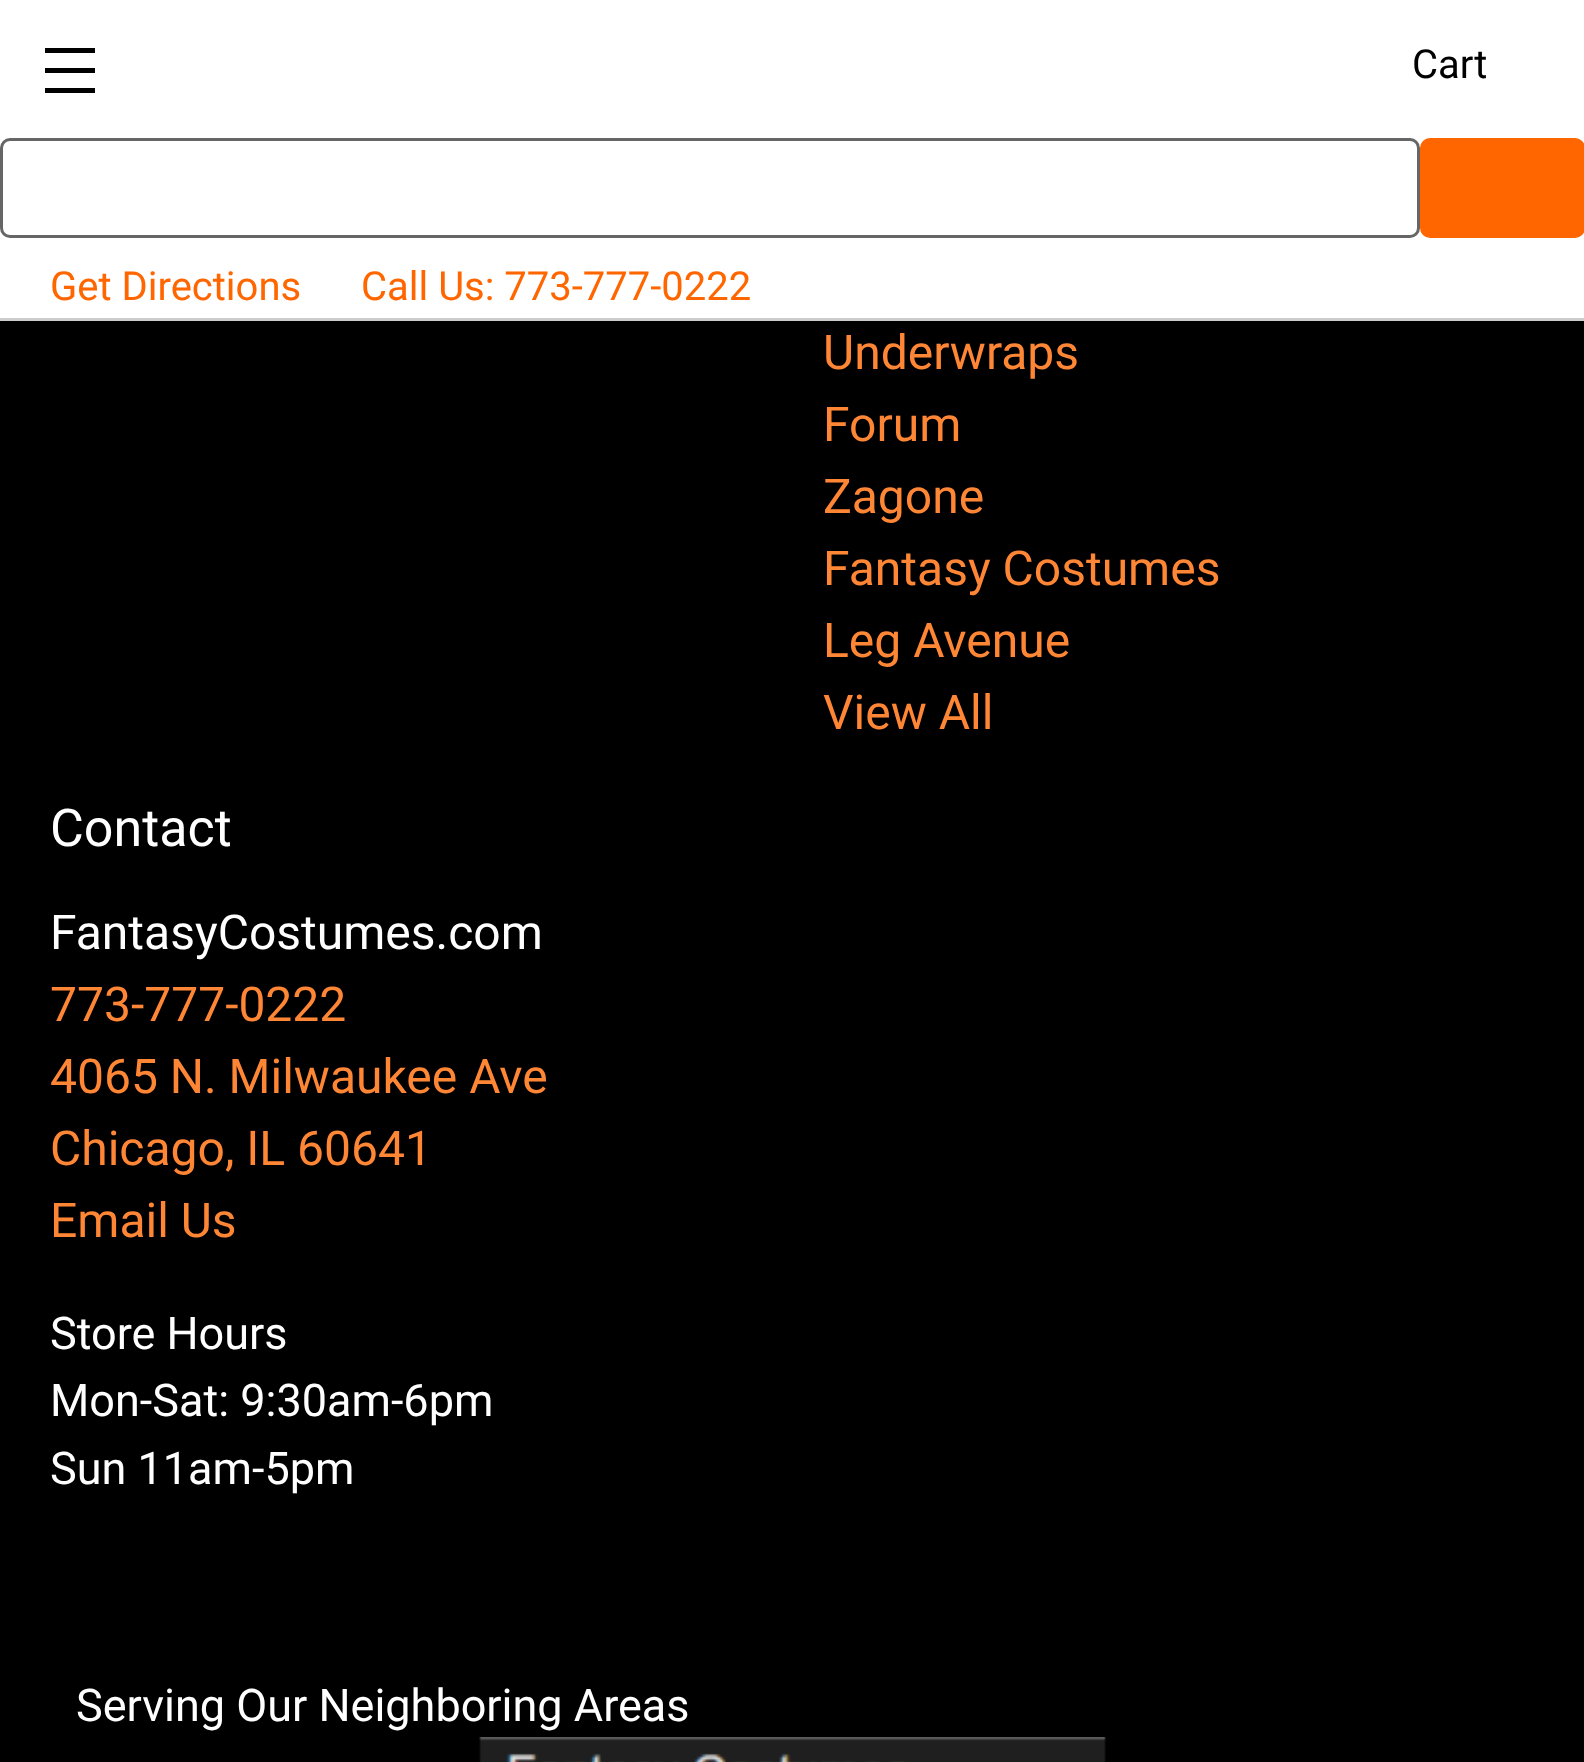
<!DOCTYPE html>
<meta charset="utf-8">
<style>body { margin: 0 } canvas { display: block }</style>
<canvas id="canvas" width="1584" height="1762"></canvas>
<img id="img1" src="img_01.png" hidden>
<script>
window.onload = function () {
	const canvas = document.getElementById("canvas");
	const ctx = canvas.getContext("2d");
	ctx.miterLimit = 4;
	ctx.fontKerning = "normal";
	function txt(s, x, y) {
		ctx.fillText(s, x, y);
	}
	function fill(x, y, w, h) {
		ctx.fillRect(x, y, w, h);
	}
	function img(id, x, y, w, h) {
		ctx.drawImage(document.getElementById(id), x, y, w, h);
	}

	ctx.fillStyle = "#000000";
	fill(0, 0, 1584, 1762);
	ctx.fillStyle = "#FFFFFF";
	fill(0, 0, 1584, 318);
	ctx.fillStyle = "#CCCCCC";
	fill(0, 318, 1584, 3);
	ctx.fillStyle = "#000000";
	fill(45, 68, 50, 5);
	fill(45, 48, 50, 5);
	fill(45, 88, 50, 5);
	ctx.beginPath();
	ctx.roundRect(1.5, 139.5, 1417, 97, 8.5);
	ctx.strokeStyle = "#666666";
	ctx.lineWidth = 3;
	ctx.stroke();
	ctx.fillStyle = "#FF6600";
	ctx.beginPath();
	ctx.roundRect(1421.5, 139.5, 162, 97, 8.5);
	ctx.fill();
	ctx.strokeStyle = "#FF6600";
	ctx.stroke();
	img("img1", 479, 1737, 627, 25);
	ctx.font = "40px Roboto";
	ctx.fillStyle = "#000000";
	txt("Cart", 1412, 78);
	ctx.fillStyle = "#FF6600";
	txt("Get Directions", 50, 300);
	txt("Call Us: 773-777-0222", 361, 300);
	ctx.font = "48px Roboto";
	ctx.fillStyle = "#FF8635";
	txt("Underwraps", 823, 369);
	txt("Forum", 823, 441);
	txt("Zagone", 823, 513);
	txt("Fantasy Costumes", 823, 585);
	txt("Leg Avenue", 823, 657);
	txt("View All", 823, 729);
	ctx.font = "52px Roboto";
	ctx.fillStyle = "#FFFFFF";
	txt("Contact", 50, 846);
	ctx.font = "48px Roboto";
	txt("FantasyCostumes.com", 50, 949);
	ctx.fillStyle = "#FF8635";
	txt("773-777-0222", 50, 1021);
	txt("4065 N. Milwaukee Ave", 50, 1093);
	txt("Chicago, IL 60641", 50, 1165);
	txt("Email Us", 50, 1237);
	ctx.font = "45px Roboto";
	ctx.fillStyle = "#FFFFFF";
	txt("Store Hours", 50, 1349);
	txt("Mon-Sat: 9:30am-6pm", 50, 1416);
	txt("Sun 11am-5pm", 50, 1484);
	txt("Serving Our Neighboring Areas", 76, 1721);
};
</script>
